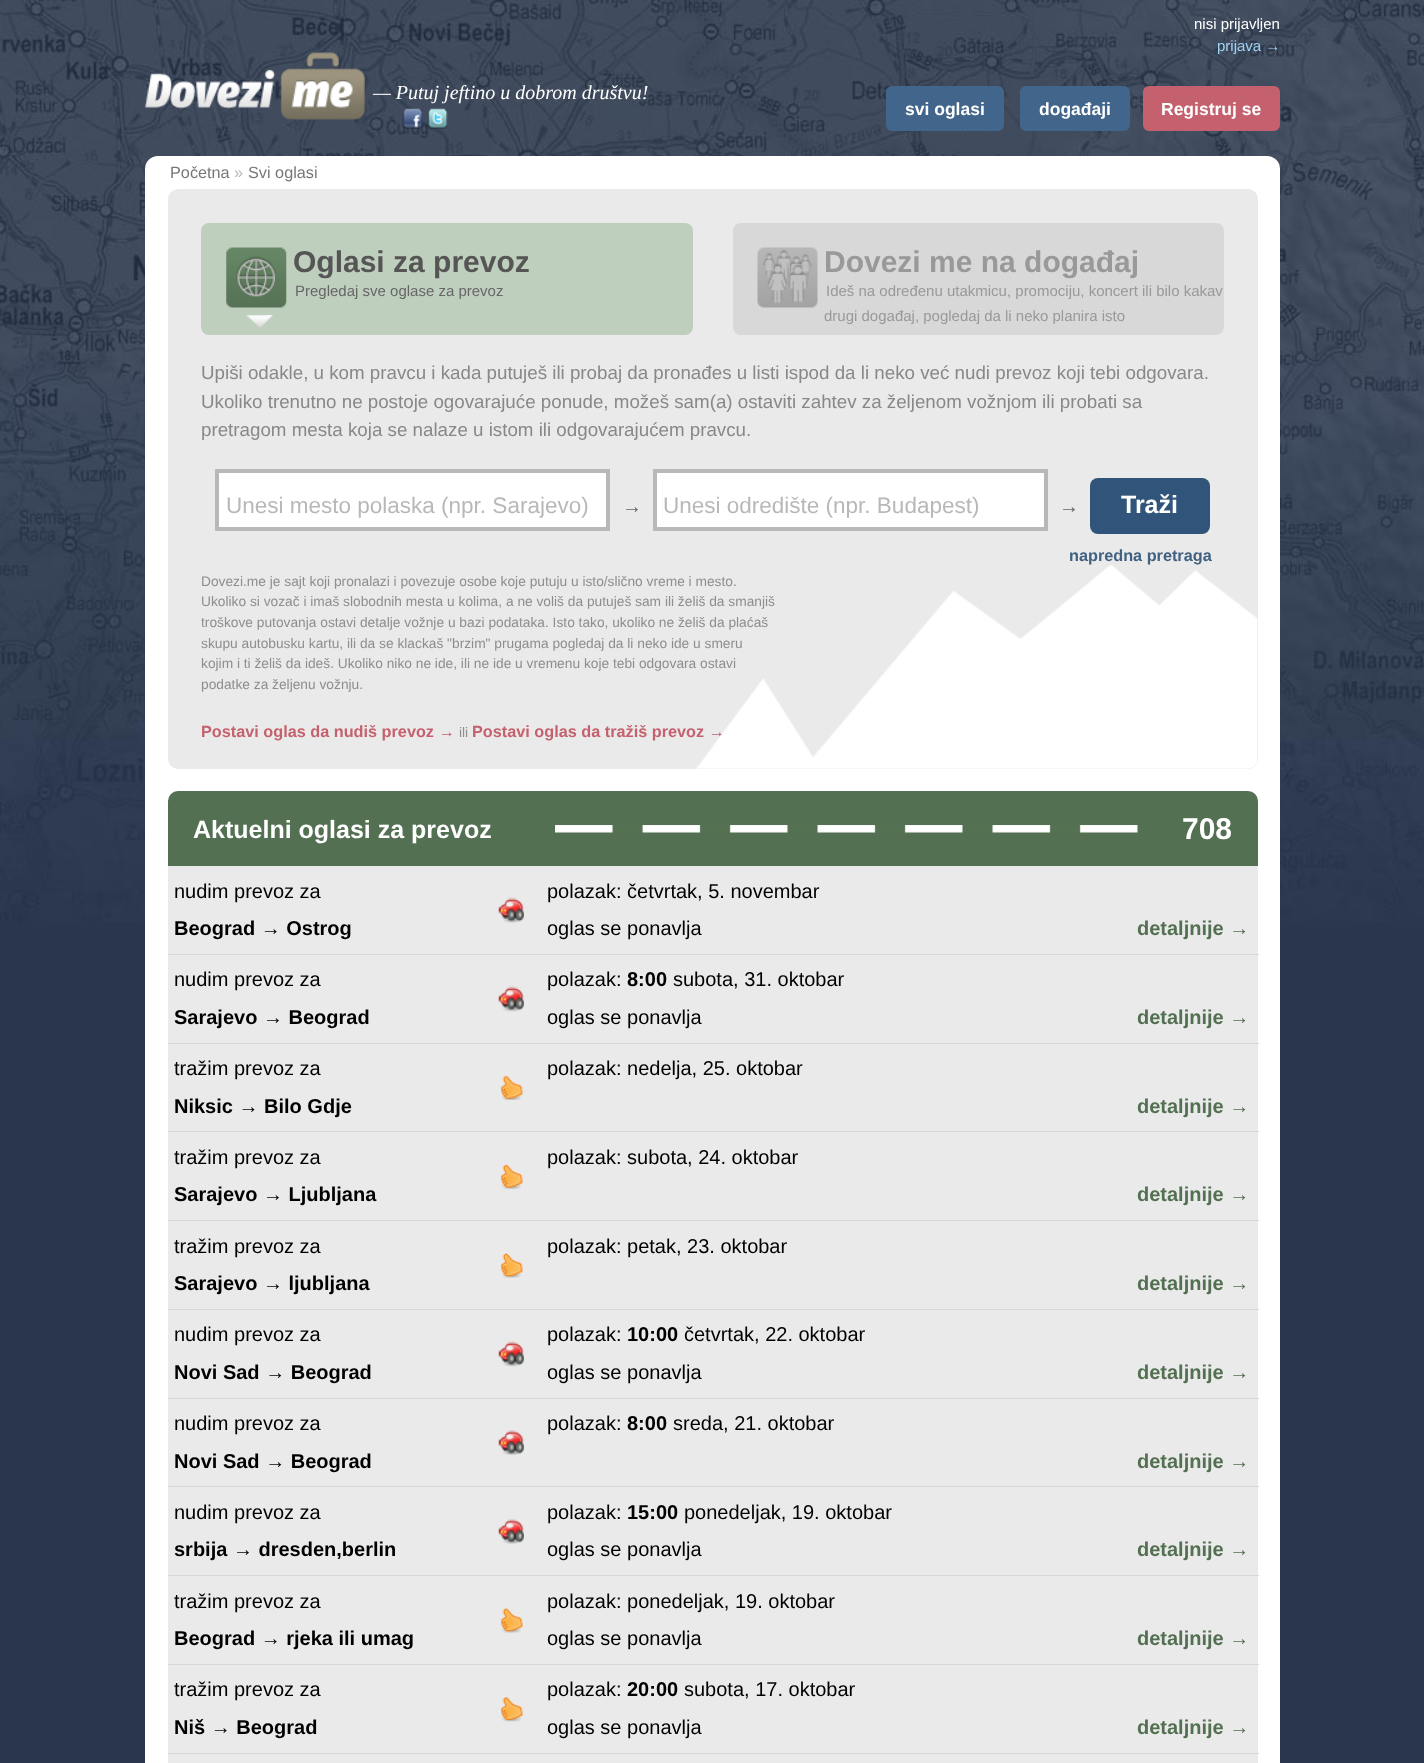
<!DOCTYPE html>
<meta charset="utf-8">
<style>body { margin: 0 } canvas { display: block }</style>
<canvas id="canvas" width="1424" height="1763"></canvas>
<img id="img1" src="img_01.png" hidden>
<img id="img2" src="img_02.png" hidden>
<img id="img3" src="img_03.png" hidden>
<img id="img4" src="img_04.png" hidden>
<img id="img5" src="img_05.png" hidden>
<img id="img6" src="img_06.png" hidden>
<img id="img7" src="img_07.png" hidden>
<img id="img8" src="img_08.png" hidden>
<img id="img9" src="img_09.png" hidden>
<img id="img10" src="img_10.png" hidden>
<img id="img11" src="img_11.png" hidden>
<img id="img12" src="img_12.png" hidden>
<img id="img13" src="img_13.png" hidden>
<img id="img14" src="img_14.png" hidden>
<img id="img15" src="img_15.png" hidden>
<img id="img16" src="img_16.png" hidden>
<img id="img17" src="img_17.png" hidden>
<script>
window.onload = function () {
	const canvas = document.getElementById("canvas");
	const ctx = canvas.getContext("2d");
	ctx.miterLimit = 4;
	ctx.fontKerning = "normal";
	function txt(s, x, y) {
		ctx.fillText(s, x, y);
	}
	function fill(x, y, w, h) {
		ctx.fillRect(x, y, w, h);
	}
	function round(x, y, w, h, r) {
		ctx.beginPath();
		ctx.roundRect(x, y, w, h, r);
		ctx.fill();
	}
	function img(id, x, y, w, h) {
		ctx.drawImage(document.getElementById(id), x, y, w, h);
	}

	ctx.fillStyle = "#29364D";
	fill(0, 0, 1424, 1763);
	img("img1", 0, 0, 1424, 922);
	img("img2", 145, 52, 220, 68);
	img("img3", 402, 108, 21, 21);
	img("img4", 427, 108, 21, 21);
	ctx.fillStyle = "#42668B";
	round(886, 86, 118, 45, 6);
	round(1020, 86, 110, 45, 6);
	ctx.fillStyle = "#C5616E";
	round(1143, 86, 137, 45, 6);
	ctx.fillStyle = "#FFFFFF";
	round(145, 156, 1135, 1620, 13);
	ctx.fillStyle = "#EAEAEA";
	round(168, 189, 1090, 580, 10);
	img("img5", 696, 565, 562, 204);
	ctx.fillStyle = "#BFCFBE";
	round(201, 223, 492, 112, 8);
	img("img6", 246, 315, 27, 13);
	img("img7", 226, 247, 61, 61);
	ctx.fillStyle = "#D8D8D8";
	round(733, 223, 491, 112, 8);
	img("img8", 757, 247, 61, 61);
	ctx.fillStyle = "#FFFFFF";
	ctx.beginPath();
	ctx.rect(217, 471, 391, 58);
	ctx.fill();
	ctx.strokeStyle = "#B8B8B8";
	ctx.lineWidth = 4;
	ctx.stroke();
	ctx.beginPath();
	ctx.rect(655, 471, 391, 58);
	ctx.fill();
	ctx.stroke();
	ctx.fillStyle = "#31557A";
	round(1090, 478, 120, 56, 8);
	ctx.fillStyle = "#547052";
	ctx.beginPath();
	ctx.roundRect(168, 791, 1090, 75, [10, 10, 0, 0]);
	ctx.fill();
	img("img9", 555, 825, 583, 8);
	ctx.fillStyle = "#EAEAEA";
	fill(168, 866, 1090, 887);
	img("img10", 498, 897, 26, 26);
	ctx.fillStyle = "#D7D7D7";
	fill(168, 954, 1091, 1);
	img("img11", 498, 986, 26, 26);
	fill(168, 1043, 1091, 1);
	img("img12", 501, 1076, 22, 24);
	fill(168, 1131, 1091, 1);
	img("img13", 501, 1164, 22, 25);
	fill(168, 1220, 1091, 1);
	img("img14", 500, 1253, 23, 25);
	fill(168, 1309, 1091, 1);
	img("img11", 498, 1341, 26, 26);
	fill(168, 1398, 1091, 1);
	img("img15", 498, 1430, 26, 25);
	fill(168, 1486, 1091, 1);
	img("img16", 498, 1518, 26, 26);
	fill(168, 1575, 1091, 1);
	img("img14", 500, 1608, 23, 25);
	fill(168, 1664, 1091, 1);
	img("img17", 500, 1697, 23, 25);
	fill(168, 1753, 1091, 1);
	ctx.fillStyle = "#EAEAEA";
	fill(168, 1754, 1090, 9);
	ctx.font = "15px Liberation Sans";
	ctx.fillStyle = "#FFFFFF";
	txt("nisi prijavljen", 1194, 29);
	ctx.fillStyle = "#9FD2F3";
	txt("prijava →", 1217, 51);
	ctx.font = "italic 20px Liberation Serif";
	ctx.fillStyle = "#FFFFFF";
	txt("— Putuj jeftino u dobrom društvu!", 373, 99);
	ctx.font = "bold 17.5px Liberation Sans";
	txt("svi oglasi", 905, 115);
	txt("događaji", 1039, 115);
	txt("Registruj se", 1161, 115);
	ctx.font = "16.25px Liberation Sans";
	ctx.fillStyle = "#777777";
	txt("Početna", 170, 178);
	ctx.fillStyle = "#B8B8B8";
	txt("»", 234, 178);
	ctx.fillStyle = "#777777";
	txt("Svi oglasi", 248, 178);
	ctx.font = "bold 30px Liberation Sans";
	ctx.fillStyle = "#555555";
	txt("Oglasi za prevoz", 293, 272);
	ctx.font = "15px Liberation Sans";
	ctx.fillStyle = "#666666";
	txt("Pregledaj sve oglase za prevoz", 295, 296);
	ctx.font = "bold 30px Liberation Sans";
	ctx.fillStyle = "#999999";
	txt("Dovezi me na događaj", 824, 272);
	ctx.font = "15px Liberation Sans";
	txt("Ideš na određenu utakmicu, promociju, koncert ili bilo kakav", 826, 296);
	txt("drugi događaj, pogledaj da li neko planira isto", 824, 321);
	ctx.font = "18.75px Liberation Sans";
	ctx.fillStyle = "#888888";
	txt("Upiši odakle, u kom pravcu i kada putuješ ili probaj da pronađes u listi ispod da li neko već nudi prevoz koji tebi odgovara.", 201, 379);
	txt("Ukoliko trenutno ne postoje ogovarajuće ponude, možeš sam(a) ostaviti zahtev za željenom vožnjom ili probati sa", 201, 408);
	txt("pretragom mesta koja se nalaze u istom ili odgovarajućem pravcu.", 201, 436);
	ctx.font = "22.5px Liberation Sans";
	ctx.fillStyle = "#B8B8B8";
	txt("Unesi mesto polaska (npr. Sarajevo)", 226, 513);
	ctx.font = "20px Liberation Sans";
	ctx.fillStyle = "#666666";
	txt("→", 622, 513);
	ctx.font = "22.5px Liberation Sans";
	ctx.fillStyle = "#B8B8B8";
	txt("Unesi odredište (npr. Budapest)", 663, 513);
	ctx.font = "20px Liberation Sans";
	ctx.fillStyle = "#666666";
	txt("→", 1059, 513);
	ctx.font = "bold 25px Liberation Sans";
	ctx.fillStyle = "#FFFFFF";
	txt("Traži", 1121, 513);
	ctx.font = "bold 16.25px Liberation Sans";
	ctx.fillStyle = "#406181";
	txt("napredna pretraga", 1069, 561);
	ctx.font = "13.75px Liberation Sans";
	ctx.fillStyle = "#8E8E8E";
	txt("Dovezi.me je sajt koji pronalazi i povezuje osobe koje putuju u isto/slično vreme i mesto.", 201, 586);
	txt("Ukoliko si vozač i imaš slobodnih mesta u kolima, a ne voliš da putuješ sam ili želiš da smanjiš", 201, 606);
	txt("troškove putovanja ostavi detalje vožnje u bazi podataka. Isto tako, ukoliko ne želiš da plaćaš", 201, 627);
	txt("skupu autobusku kartu, ili da se klackaš \"brzim\" prugama pogledaj da li neko ide u smeru", 201, 648);
	txt("kojim i ti želiš da ideš. Ukoliko niko ne ide, ili ne ide u vremenu koje tebi odgovara ostavi", 201, 668);
	txt("podatke za željenu vožnju.", 201, 689);
	ctx.font = "bold 16.25px Liberation Sans";
	ctx.fillStyle = "#C5616E";
	txt("Postavi oglas da nudiš prevoz →", 201, 737);
	ctx.font = "13.75px Liberation Sans";
	ctx.fillStyle = "#8E8E8E";
	txt("ili", 459, 737);
	ctx.font = "bold 16.25px Liberation Sans";
	ctx.fillStyle = "#C5616E";
	txt("Postavi oglas da tražiš prevoz →", 472, 737);
	ctx.font = "bold 25px Liberation Sans";
	ctx.fillStyle = "#FFFFFF";
	txt("Aktuelni oglasi za prevoz", 193, 838);
	ctx.font = "bold 30px Liberation Sans";
	txt("708", 1182, 839);
	ctx.font = "20px Liberation Sans";
	ctx.fillStyle = "#000000";
	txt("nudim prevoz za", 174, 898);
	ctx.font = "bold 20px Liberation Sans";
	txt("Beograd → Ostrog", 174, 935);
	ctx.font = "20px Liberation Sans";
	txt("polazak: četvrtak, 5. novembar", 547, 898);
	txt("oglas se ponavlja", 547, 935);
	ctx.font = "bold 20px Liberation Sans";
	ctx.fillStyle = "#547052";
	txt("detaljnije →", 1137, 935);
	ctx.font = "20px Liberation Sans";
	ctx.fillStyle = "#000000";
	txt("nudim prevoz za", 174, 986);
	ctx.font = "bold 20px Liberation Sans";
	txt("Sarajevo → Beograd", 174, 1024);
	ctx.font = "20px Liberation Sans";
	txt("polazak:", 547, 986);
	ctx.font = "bold 20px Liberation Sans";
	txt("8:00", 627, 986);
	ctx.font = "20px Liberation Sans";
	txt("subota, 31. oktobar", 673, 986);
	txt("oglas se ponavlja", 547, 1024);
	ctx.font = "bold 20px Liberation Sans";
	ctx.fillStyle = "#547052";
	txt("detaljnije →", 1137, 1024);
	ctx.font = "20px Liberation Sans";
	ctx.fillStyle = "#000000";
	txt("tražim prevoz za", 174, 1075);
	ctx.font = "bold 20px Liberation Sans";
	txt("Niksic → Bilo Gdje", 174, 1113);
	ctx.font = "20px Liberation Sans";
	txt("polazak: nedelja, 25. oktobar", 547, 1075);
	ctx.font = "bold 20px Liberation Sans";
	ctx.fillStyle = "#547052";
	txt("detaljnije →", 1137, 1113);
	ctx.font = "20px Liberation Sans";
	ctx.fillStyle = "#000000";
	txt("tražim prevoz za", 174, 1164);
	ctx.font = "bold 20px Liberation Sans";
	txt("Sarajevo → Ljubljana", 174, 1201);
	ctx.font = "20px Liberation Sans";
	txt("polazak: subota, 24. oktobar", 547, 1164);
	ctx.font = "bold 20px Liberation Sans";
	ctx.fillStyle = "#547052";
	txt("detaljnije →", 1137, 1201);
	ctx.font = "20px Liberation Sans";
	ctx.fillStyle = "#000000";
	txt("tražim prevoz za", 174, 1253);
	ctx.font = "bold 20px Liberation Sans";
	txt("Sarajevo → ljubljana", 174, 1290);
	ctx.font = "20px Liberation Sans";
	txt("polazak: petak, 23. oktobar", 547, 1253);
	ctx.font = "bold 20px Liberation Sans";
	ctx.fillStyle = "#547052";
	txt("detaljnije →", 1137, 1290);
	ctx.font = "20px Liberation Sans";
	ctx.fillStyle = "#000000";
	txt("nudim prevoz za", 174, 1341);
	ctx.font = "bold 20px Liberation Sans";
	txt("Novi Sad → Beograd", 174, 1379);
	ctx.font = "20px Liberation Sans";
	txt("polazak:", 547, 1341);
	ctx.font = "bold 20px Liberation Sans";
	txt("10:00", 627, 1341);
	ctx.font = "20px Liberation Sans";
	txt("četvrtak, 22. oktobar", 684, 1341);
	txt("oglas se ponavlja", 547, 1379);
	ctx.font = "bold 20px Liberation Sans";
	ctx.fillStyle = "#547052";
	txt("detaljnije →", 1137, 1379);
	ctx.font = "20px Liberation Sans";
	ctx.fillStyle = "#000000";
	txt("nudim prevoz za", 174, 1430);
	ctx.font = "bold 20px Liberation Sans";
	txt("Novi Sad → Beograd", 174, 1468);
	ctx.font = "20px Liberation Sans";
	txt("polazak:", 547, 1430);
	ctx.font = "bold 20px Liberation Sans";
	txt("8:00", 627, 1430);
	ctx.font = "20px Liberation Sans";
	txt("sreda, 21. oktobar", 673, 1430);
	ctx.font = "bold 20px Liberation Sans";
	ctx.fillStyle = "#547052";
	txt("detaljnije →", 1137, 1468);
	ctx.font = "20px Liberation Sans";
	ctx.fillStyle = "#000000";
	txt("nudim prevoz za", 174, 1519);
	ctx.font = "bold 20px Liberation Sans";
	txt("srbija → dresden,berlin", 174, 1556);
	ctx.font = "20px Liberation Sans";
	txt("polazak:", 547, 1519);
	ctx.font = "bold 20px Liberation Sans";
	txt("15:00", 627, 1519);
	ctx.font = "20px Liberation Sans";
	txt("ponedeljak, 19. oktobar", 684, 1519);
	txt("oglas se ponavlja", 547, 1556);
	ctx.font = "bold 20px Liberation Sans";
	ctx.fillStyle = "#547052";
	txt("detaljnije →", 1137, 1556);
	ctx.font = "20px Liberation Sans";
	ctx.fillStyle = "#000000";
	txt("tražim prevoz za", 174, 1608);
	ctx.font = "bold 20px Liberation Sans";
	txt("Beograd → rjeka ili umag", 174, 1645);
	ctx.font = "20px Liberation Sans";
	txt("polazak: ponedeljak, 19. oktobar", 547, 1608);
	txt("oglas se ponavlja", 547, 1645);
	ctx.font = "bold 20px Liberation Sans";
	ctx.fillStyle = "#547052";
	txt("detaljnije →", 1137, 1645);
	ctx.font = "20px Liberation Sans";
	ctx.fillStyle = "#000000";
	txt("tražim prevoz za", 174, 1696);
	ctx.font = "bold 20px Liberation Sans";
	txt("Niš → Beograd", 174, 1734);
	ctx.font = "20px Liberation Sans";
	txt("polazak:", 547, 1696);
	ctx.font = "bold 20px Liberation Sans";
	txt("20:00", 627, 1696);
	ctx.font = "20px Liberation Sans";
	txt("subota, 17. oktobar", 684, 1696);
	txt("oglas se ponavlja", 547, 1734);
	ctx.font = "bold 20px Liberation Sans";
	ctx.fillStyle = "#547052";
	txt("detaljnije →", 1137, 1734);
};
</script>
